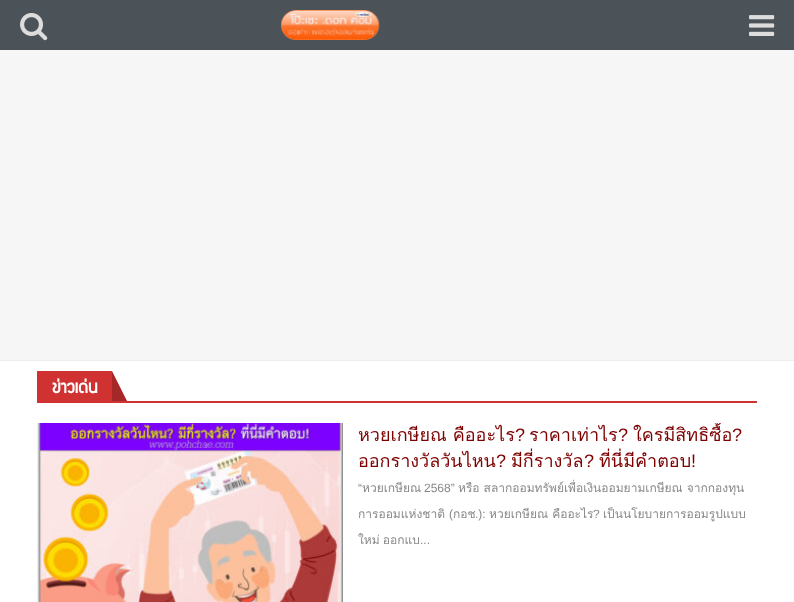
<!DOCTYPE html>
<meta charset="utf-8">
<style>body { margin: 0 } canvas { display: block }</style>
<canvas id="canvas" width="794" height="602"></canvas>
<img id="img1" src="img_01.png" hidden>
<img id="img2" src="img_02.png" hidden>
<img id="img3" src="img_03.png" hidden>
<img id="img4" src="img_04.png" hidden>
<script>
window.onload = function () {
	const canvas = document.getElementById("canvas");
	const ctx = canvas.getContext("2d");
	ctx.miterLimit = 4;
	ctx.fontKerning = "normal";
	function txt(s, x, y) {
		ctx.fillText(s, x, y);
	}
	function fill(x, y, w, h) {
		ctx.fillRect(x, y, w, h);
	}
	function img(id, x, y, w, h) {
		ctx.drawImage(document.getElementById(id), x, y, w, h);
	}

	ctx.fillStyle = "#FFFFFF";
	fill(0, 0, 794, 602);
	ctx.fillStyle = "#4C5358";
	fill(0, 0, 794, 50);
	img("img1", 20, 13, 28, 28);
	img("img2", 281, 10, 99, 30);
	img("img3", 749, 15, 26, 21);
	ctx.fillStyle = "#F6F6F6";
	fill(0, 50, 794, 310);
	ctx.fillStyle = "#EDEDED";
	fill(0, 360, 794, 1);
	ctx.fillStyle = "#D03131";
	fill(37, 401, 720, 2);
	fill(37, 371, 75, 30);
	ctx.fillStyle = "#A62727";
	ctx.beginPath();
	ctx.moveTo(127, 401);
	ctx.lineTo(112, 401);
	ctx.lineTo(112, 371);
	ctx.closePath();
	ctx.fill();
	img("img4", 37, 423, 306, 179);
	ctx.font = "bold 19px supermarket";
	ctx.fillStyle = "#FFFFFF";
	txt("ข่าวเด่น", 52, 393);
	ctx.font = "18px Loma";
	ctx.fillStyle = "#7E0101";
	txt("หวยเกษียณ คืออะไร", 358, 441);
	ctx.font = "18px Liberation Sans";
	txt("?", 515, 441);
	ctx.font = "18px Loma";
	txt("ราคาเท่าไร", 529, 441);
	ctx.font = "18px Liberation Sans";
	txt("?", 618, 441);
	ctx.save();
	ctx.beginPath();
	ctx.rect(343, 423, 429, 129);
	ctx.clip();
	ctx.font = "18px Loma";
	txt("ใครมีสิทธิซื้อ", 633, 441);
	ctx.restore();
	txt("?", 732, 441);
	ctx.font = "18px Loma";
	txt("ออกรางวัลวันไหน", 358, 467);
	ctx.font = "18px Liberation Sans";
	txt("?", 496, 467);
	ctx.font = "18px Loma";
	txt("มีกี่รางวัล", 511, 467);
	ctx.font = "18px Liberation Sans";
	txt("?", 584, 467);
	ctx.font = "18px Loma";
	txt("ที่นี่มีคำตอบ", 599, 467);
	ctx.font = "18px Liberation Sans";
	txt("!", 691, 467);
	ctx.font = "12px Liberation Sans";
	ctx.fillStyle = "#888888";
	txt("“", 358, 492);
	ctx.font = "12px Loma";
	txt("หวยเกษียณ", 362, 492);
	ctx.font = "12px Liberation Sans";
	txt("2568”", 424, 492);
	ctx.font = "12px Loma";
	txt("หรือ สลากออมทรัพย์เพื่อเงินออมยามเกษียณ จากกองทุน", 458, 492);
	txt("การออมแห่งชาติ", 358, 518);
	ctx.font = "12px Liberation Sans";
	txt("(", 449, 518);
	ctx.font = "12px Loma";
	txt("กอช", 453, 518);
	ctx.font = "12px Liberation Sans";
	txt(".):", 475, 518);
	ctx.font = "12px Loma";
	txt("หวยเกษียณ คืออะไร", 489, 518);
	ctx.font = "12px Liberation Sans";
	txt("?", 593, 518);
	ctx.font = "12px Loma";
	txt("เป็นนโยบายการออมรูปแบบ", 603, 518);
	ctx.wordSpacing = "-1px";
	txt("ใหม่ ออกแบ", 358, 544);
	ctx.wordSpacing = "0px";
	ctx.font = "12px Liberation Sans";
	txt("...", 420, 544);
};
</script>
